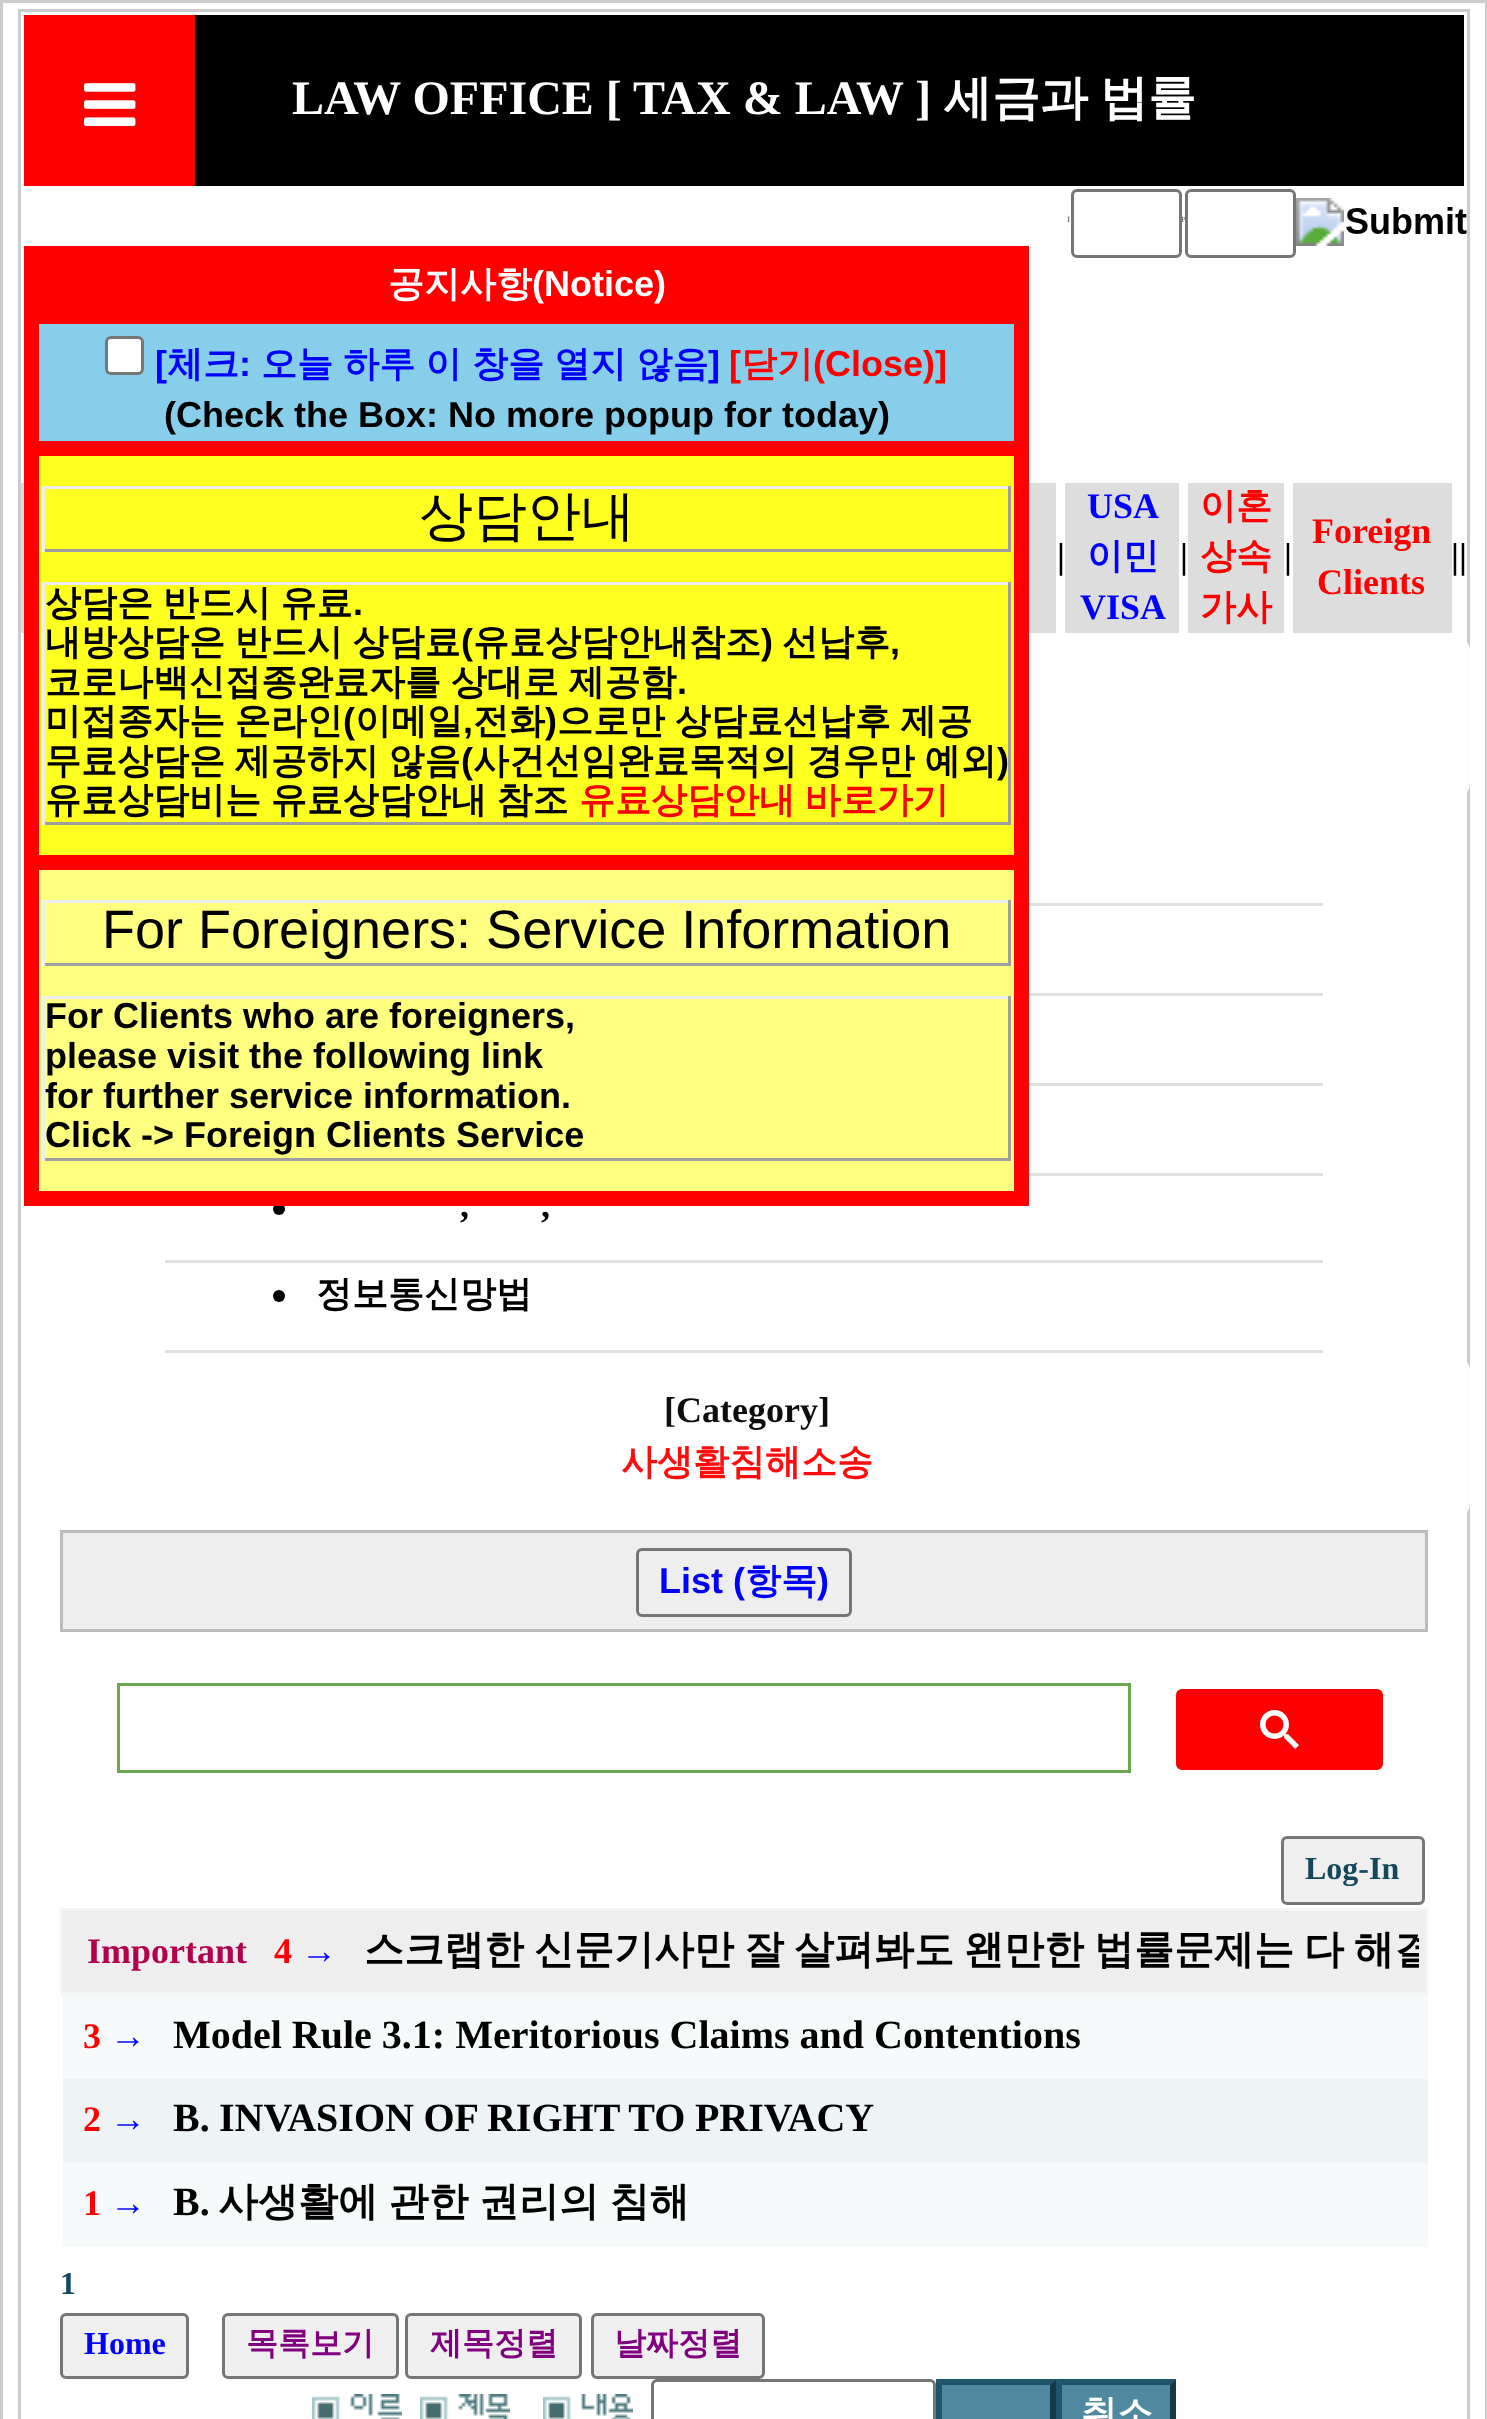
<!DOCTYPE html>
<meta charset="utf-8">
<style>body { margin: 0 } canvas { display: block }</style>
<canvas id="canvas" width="1487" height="2419"></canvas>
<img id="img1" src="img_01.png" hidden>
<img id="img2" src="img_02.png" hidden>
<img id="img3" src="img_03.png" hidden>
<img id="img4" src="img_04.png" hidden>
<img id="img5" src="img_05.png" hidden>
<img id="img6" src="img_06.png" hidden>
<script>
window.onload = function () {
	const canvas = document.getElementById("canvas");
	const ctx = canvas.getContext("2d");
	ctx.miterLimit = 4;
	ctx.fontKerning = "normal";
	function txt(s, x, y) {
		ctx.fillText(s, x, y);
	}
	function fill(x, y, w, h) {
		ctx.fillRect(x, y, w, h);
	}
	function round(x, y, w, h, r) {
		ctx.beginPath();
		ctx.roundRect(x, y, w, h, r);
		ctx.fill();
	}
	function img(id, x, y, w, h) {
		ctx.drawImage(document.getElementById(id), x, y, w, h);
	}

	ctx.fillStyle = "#FFFFFF";
	fill(0, 0, 1487, 2419);
	ctx.strokeStyle = "#CCCCCC";
	ctx.lineWidth = 3;
	ctx.strokeRect(1.5, 1.5, 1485, 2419);
	ctx.strokeRect(19.5, 10.5, 1449, 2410);
	ctx.fillStyle = "#000000";
	fill(195, 15, 1269, 171);
	ctx.fillStyle = "#FF0000";
	fill(24, 15, 171, 171);
	img("img1", 84, 83, 52, 43);
	ctx.beginPath();
	ctx.roundRect(1072.5, 190.5, 108, 66, 4.5);
	ctx.strokeStyle = "#767676";
	ctx.stroke();
	img("img2", 1296, 198, 171, 48);
	fill(39, 246, 975, 78);
	ctx.fillStyle = "#87CEEB";
	fill(39, 324, 975, 117);
	ctx.fillStyle = "#FFFFFF";
	ctx.beginPath();
	ctx.roundRect(106.5, 337.5, 36, 36, 4.5);
	ctx.fill();
	ctx.stroke();
	ctx.fillStyle = "rgba(255, 255, 255, 0.95)";
	round(24, 636, 1446, 162, 15);
	ctx.fillStyle = "#FFFF20";
	fill(39, 456, 975, 399);
	ctx.fillStyle = "#FF0000";
	fill(39, 441, 975, 15);
	ctx.fillStyle = "#EEEEEE";
	fill(42, 486, 969, 3);
	ctx.fillStyle = "#9F9F9F";
	fill(1008, 486, 3, 66);
	fill(42, 549, 969, 3);
	ctx.fillStyle = "#EEEEEE";
	fill(42, 486, 3, 66);
	fill(42, 582, 969, 3);
	ctx.fillStyle = "#9F9F9F";
	fill(1008, 582, 3, 243);
	fill(42, 822, 969, 3);
	ctx.fillStyle = "#EEEEEE";
	fill(42, 582, 3, 243);
	ctx.fillStyle = "#FFFF80";
	fill(39, 870, 975, 321);
	ctx.fillStyle = "#FF0000";
	fill(39, 855, 975, 15);
	fill(1014, 246, 15, 945);
	ctx.fillStyle = "#000000";
	ctx.beginPath();
	ctx.arc(279, 1209, 6, 0, Math.PI * 2);
	ctx.fill();
	ctx.fillStyle = "#FF0000";
	fill(39, 1191, 990, 15);
	fill(24, 246, 15, 960);
	ctx.fillStyle = "#EEEEEE";
	fill(42, 900, 969, 3);
	ctx.fillStyle = "#9F9F9F";
	fill(1008, 900, 3, 66);
	fill(42, 963, 969, 3);
	ctx.fillStyle = "#EEEEEE";
	fill(42, 900, 3, 66);
	fill(42, 996, 969, 3);
	ctx.fillStyle = "#9F9F9F";
	fill(1008, 996, 3, 165);
	fill(42, 1158, 969, 3);
	ctx.fillStyle = "#EEEEEE";
	fill(42, 996, 3, 165);
	ctx.fillStyle = "#DDDDDD";
	fill(21, 483, 3, 150);
	fill(1029, 483, 27, 150);
	fill(1065, 483, 114, 150);
	fill(1188, 483, 96, 150);
	fill(1293, 483, 159, 150);
	ctx.fillStyle = "#E0E0E0";
	fill(1029, 903, 294, 3);
	fill(1029, 993, 294, 3);
	fill(1029, 1083, 294, 3);
	fill(1029, 1173, 294, 3);
	fill(165, 1260, 1158, 3);
	fill(165, 1350, 1158, 3);
	ctx.fillStyle = "#000000";
	ctx.beginPath();
	ctx.arc(279, 1296, 6, 0, Math.PI * 2);
	ctx.fill();
	ctx.fillStyle = "rgba(255, 255, 255, 0.95)";
	round(24, 1356, 1446, 162, 15);
	ctx.fillStyle = "#EEEEEE";
	fill(63, 1533, 1362, 96);
	ctx.fillStyle = "#BBBBBB";
	fill(60, 1530, 1368, 3);
	fill(1425, 1530, 3, 102);
	fill(60, 1629, 1368, 3);
	fill(60, 1530, 3, 102);
	ctx.beginPath();
	ctx.roundRect(637.5, 1549.5, 213, 66, 4.5);
	ctx.stroke();
	ctx.strokeStyle = "#6AA84F";
	ctx.strokeRect(118.5, 1684.5, 1011, 87);
	ctx.fillStyle = "#FF0000";
	ctx.beginPath();
	ctx.roundRect(1177.5, 1690.5, 204, 78, 4.5);
	ctx.fill();
	ctx.strokeStyle = "#FF0000";
	ctx.stroke();
	img("img3", 1260, 1710, 39, 39);
	ctx.fillStyle = "#EFEFEF";
	ctx.beginPath();
	ctx.roundRect(1282.5, 1837.5, 141, 66, 4.5);
	ctx.fill();
	ctx.strokeStyle = "#767676";
	ctx.stroke();
	ctx.fillStyle = "#EEEEEE";
	fill(63, 1911, 1362, 81);
	ctx.fillStyle = "#F5F5F5";
	fill(60, 1908, 1368, 3);
	fill(1425, 1908, 3, 87);
	fill(60, 1992, 1368, 3);
	fill(60, 1908, 3, 87);
	ctx.fillStyle = "#F7FAFB";
	fill(63, 1995, 1365, 84);
	ctx.fillStyle = "#EEF3F6";
	fill(63, 2079, 1365, 84);
	ctx.fillStyle = "#F7FAFB";
	fill(63, 2163, 1365, 84);
	ctx.fillStyle = "#EFEFEF";
	ctx.beginPath();
	ctx.roundRect(61.5, 2314.5, 126, 63, 4.5);
	ctx.fill();
	ctx.stroke();
	ctx.beginPath();
	ctx.roundRect(223.5, 2314.5, 174, 63, 4.5);
	ctx.fill();
	ctx.stroke();
	ctx.beginPath();
	ctx.roundRect(406.5, 2314.5, 174, 63, 4.5);
	ctx.fill();
	ctx.stroke();
	ctx.beginPath();
	ctx.roundRect(592.5, 2314.5, 171, 63, 4.5);
	ctx.fill();
	ctx.stroke();
	img("img4", 312, 2394, 90, 25);
	img("img5", 420, 2394, 90, 25);
	img("img6", 543, 2394, 90, 25);
	ctx.beginPath();
	ctx.roundRect(652.5, 2380.5, 282, 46, 4.5);
	ctx.stroke();
	ctx.fillStyle = "#50889F";
	fill(936, 2379, 240, 40);
	ctx.fillStyle = "#1F556A";
	ctx.beginPath();
	ctx.moveTo(936, 2379);
	ctx.lineTo(1056, 2379);
	ctx.lineTo(1050, 2385);
	ctx.lineTo(942, 2385);
	ctx.closePath();
	ctx.fill();
	ctx.fillStyle = "#153947";
	ctx.beginPath();
	ctx.moveTo(1056, 2379);
	ctx.lineTo(1056, 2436);
	ctx.lineTo(1050, 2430);
	ctx.lineTo(1050, 2385);
	ctx.closePath();
	ctx.fill();
	ctx.fillStyle = "#1F556A";
	ctx.beginPath();
	ctx.moveTo(936, 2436);
	ctx.lineTo(936, 2379);
	ctx.lineTo(942, 2385);
	ctx.lineTo(942, 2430);
	ctx.closePath();
	ctx.fill();
	ctx.beginPath();
	ctx.moveTo(1056, 2379);
	ctx.lineTo(1176, 2379);
	ctx.lineTo(1170, 2385);
	ctx.lineTo(1062, 2385);
	ctx.closePath();
	ctx.fill();
	ctx.fillStyle = "#153947";
	ctx.beginPath();
	ctx.moveTo(1176, 2379);
	ctx.lineTo(1176, 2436);
	ctx.lineTo(1170, 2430);
	ctx.lineTo(1170, 2385);
	ctx.closePath();
	ctx.fill();
	ctx.fillStyle = "#1F556A";
	ctx.beginPath();
	ctx.moveTo(1056, 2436);
	ctx.lineTo(1056, 2379);
	ctx.lineTo(1062, 2385);
	ctx.lineTo(1062, 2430);
	ctx.closePath();
	ctx.fill();
	ctx.font = "bold 48px Liberation Serif";
	ctx.fillStyle = "#FFFFFF";
	txt("LAW OFFICE [ TAX & LAW ]", 292, 114);
	ctx.font = "bold 48px WenQuanYi Zen Hei";
	txt("세금과", 944, 114);
	txt("법률", 1100, 114);
	ctx.font = "bold 8px Liberation Serif";
	ctx.fillStyle = "#808080";
	txt("I", 1067, 222);
	txt("P", 1181, 222);
	ctx.fillStyle = "#FFFFFF";
	ctx.beginPath();
	ctx.roundRect(1186.5, 190.5, 108, 66, 4.5);
	ctx.fill();
	ctx.stroke();
	ctx.font = "bold 36px WenQuanYi Zen Hei";
	txt("공지사항", 388, 296);
	ctx.font = "bold 36px Liberation Sans";
	txt("(Notice)", 532, 296);
	ctx.fillStyle = "#0000FF";
	txt("[", 155, 376);
	ctx.font = "bold 36px WenQuanYi Zen Hei";
	txt("체크", 167, 376);
	ctx.font = "bold 36px Liberation Sans";
	txt(":", 239, 376);
	ctx.wordSpacing = "-0.5px";
	ctx.font = "bold 36px WenQuanYi Zen Hei";
	txt("오늘 하루 이 창을 열지 않음", 261, 376);
	ctx.wordSpacing = "0px";
	ctx.font = "bold 36px Liberation Sans";
	txt("]", 708, 376);
	ctx.fillStyle = "#FF0000";
	txt("[", 729, 376);
	ctx.font = "bold 36px WenQuanYi Zen Hei";
	txt("닫기", 741, 376);
	ctx.font = "bold 36px Liberation Sans";
	txt("(Close)]", 813, 376);
	ctx.fillStyle = "#000000";
	txt("(Check the Box: No more popup for today)", 164, 427);
	ctx.font = "500 54px WenQuanYi Zen Hei";
	txt("상담안내", 419, 534);
	ctx.wordSpacing = "-1px";
	ctx.font = "bold 36px WenQuanYi Zen Hei";
	txt("상담은 반드시 유료", 45, 615);
	ctx.wordSpacing = "0px";
	ctx.font = "bold 36px Liberation Sans";
	txt(".", 353, 615);
	ctx.wordSpacing = "-1px";
	ctx.font = "bold 36px WenQuanYi Zen Hei";
	txt("내방상담은 반드시 상담료", 45, 654);
	ctx.wordSpacing = "0px";
	ctx.font = "bold 36px Liberation Sans";
	txt("(", 461, 654);
	ctx.font = "bold 36px WenQuanYi Zen Hei";
	txt("유료상담안내참조", 473, 654);
	ctx.font = "bold 36px Liberation Sans";
	txt(")", 761, 654);
	ctx.font = "bold 36px WenQuanYi Zen Hei";
	txt("선납후", 782, 654);
	ctx.font = "bold 36px Liberation Sans";
	txt(",", 890, 654);
	ctx.wordSpacing = "-1px";
	ctx.font = "bold 36px WenQuanYi Zen Hei";
	txt("코로나백신접종완료자를 상대로 제공함", 45, 694);
	ctx.wordSpacing = "0px";
	ctx.font = "bold 36px Liberation Sans";
	txt(".", 677, 694);
	ctx.wordSpacing = "-1px";
	ctx.font = "bold 36px WenQuanYi Zen Hei";
	txt("미접종자는 온라인", 45, 733);
	ctx.wordSpacing = "0px";
	ctx.font = "bold 36px Liberation Sans";
	txt("(", 343, 733);
	ctx.font = "bold 36px WenQuanYi Zen Hei";
	txt("이메일", 355, 733);
	ctx.font = "bold 36px Liberation Sans";
	txt(",", 463, 733);
	ctx.font = "bold 36px WenQuanYi Zen Hei";
	txt("전화", 473, 733);
	ctx.font = "bold 36px Liberation Sans";
	txt(")", 545, 733);
	ctx.wordSpacing = "-1px";
	ctx.font = "bold 36px WenQuanYi Zen Hei";
	txt("으로만 상담료선납후 제공", 557, 733);
	txt("무료상담은 제공하지 않음", 45, 773);
	ctx.wordSpacing = "0px";
	ctx.font = "bold 36px Liberation Sans";
	txt("(", 461, 773);
	ctx.wordSpacing = "-1px";
	ctx.font = "bold 36px WenQuanYi Zen Hei";
	txt("사건선임완료목적의 경우만 예외", 473, 773);
	ctx.wordSpacing = "0px";
	ctx.font = "bold 36px Liberation Sans";
	txt(")", 997, 773);
	ctx.wordSpacing = "-1px";
	ctx.font = "bold 36px WenQuanYi Zen Hei";
	txt("유료상담비는 유료상담안내 참조", 45, 812);
	ctx.fillStyle = "#FF0000";
	txt("유료상담안내 바로가기", 579, 812);
	ctx.wordSpacing = "0px";
	ctx.font = "54px Liberation Sans";
	ctx.fillStyle = "#000000";
	txt("For Foreigners: Service Information", 102, 948);
	ctx.font = "bold 36px Liberation Sans";
	txt("For Clients who are foreigners,", 45, 1028);
	txt("please visit the following link", 45, 1068);
	txt("for further service information.", 45, 1108);
	txt("Click -> Foreign Clients Service", 45, 1147);
	ctx.font = "bold 36px Liberation Serif";
	txt("|", 1057, 568);
	ctx.fillStyle = "#0000FF";
	txt("USA", 1087, 518);
	ctx.font = "bold 36px WenQuanYi Zen Hei";
	txt("이민", 1087, 568);
	ctx.font = "bold 36px Liberation Serif";
	txt("VISA", 1080, 619);
	ctx.fillStyle = "#000000";
	txt("|", 1180, 568);
	ctx.font = "bold 36px WenQuanYi Zen Hei";
	ctx.fillStyle = "#FF0000";
	txt("이혼", 1200, 518);
	txt("상속", 1200, 568);
	txt("가사", 1200, 619);
	ctx.font = "bold 36px Liberation Serif";
	ctx.fillStyle = "#000000";
	txt("|", 1284, 568);
	ctx.fillStyle = "#FF0000";
	txt("Foreign", 1312, 543);
	txt("Clients", 1317, 594);
	ctx.fillStyle = "#000000";
	txt("|", 1451, 568);
	txt("|", 1459, 568);
	txt(",", 460, 1217);
	txt(",", 541, 1217);
	ctx.font = "bold 36px WenQuanYi Zen Hei";
	txt("정보통신망법", 316, 1306);
	ctx.font = "bold 36px Liberation Serif";
	ctx.fillStyle = "#0D0D0D";
	txt("[Category]", 664, 1422);
	ctx.font = "bold 36px WenQuanYi Zen Hei";
	ctx.fillStyle = "#FF0D0D";
	txt("사생활침해소송", 621, 1474);
	ctx.font = "bold 36px Liberation Sans";
	ctx.fillStyle = "#0000FF";
	txt("List (", 659, 1593);
	ctx.font = "bold 36px WenQuanYi Zen Hei";
	txt("항목", 745, 1593);
	ctx.font = "bold 36px Liberation Sans";
	txt(")", 817, 1593);
	ctx.font = "bold 32px Liberation Serif";
	ctx.fillStyle = "#13485D";
	txt("Log-In", 1305, 1879);
	ctx.font = "bold 36px Liberation Serif";
	ctx.fillStyle = "#B2004C";
	txt("Important", 87, 1963);
	ctx.fillStyle = "#FF0000";
	txt("4", 274, 1963);
	ctx.fillStyle = "#0000FF";
	txt("→", 301, 1963);
	ctx.save();
	ctx.beginPath();
	ctx.rect(69, 1926, 1350, 51);
	ctx.clip();
	ctx.wordSpacing = "-2px";
	ctx.font = "bold 40px WenQuanYi Zen Hei";
	ctx.fillStyle = "#000000";
	txt("스크랩한 신문기사만 잘 살펴봐도 왠만한 법률문제는 다 해결", 364, 1963);
	ctx.restore();
	ctx.fillStyle = "#FF0000";
	txt("3", 83, 2048);
	ctx.fillStyle = "#0000FF";
	txt("→", 110, 2048);
	ctx.font = "bold 40px Liberation Serif";
	ctx.fillStyle = "#000000";
	txt("Model Rule 3.1: Meritorious Claims and Contentions", 173, 2048);
	ctx.font = "bold 36px Liberation Serif";
	ctx.fillStyle = "#FF0000";
	txt("2", 83, 2131);
	ctx.fillStyle = "#0000FF";
	txt("→", 110, 2131);
	ctx.font = "bold 40px Liberation Serif";
	ctx.fillStyle = "#000000";
	txt("B.", 173, 2131);
	ctx.wordSpacing = "-0.5px";
	txt("INVASION OF RIGHT TO PRIVACY", 219, 2131);
	ctx.wordSpacing = "0px";
	ctx.font = "bold 36px Liberation Serif";
	ctx.fillStyle = "#FF0000";
	txt("1", 83, 2215);
	ctx.fillStyle = "#0000FF";
	txt("→", 110, 2215);
	ctx.font = "bold 40px Liberation Serif";
	ctx.fillStyle = "#000000";
	txt("B.", 173, 2215);
	ctx.wordSpacing = "-1.5px";
	ctx.font = "bold 40px WenQuanYi Zen Hei";
	txt("사생활에 관한 권리의 침해", 218, 2215);
	ctx.wordSpacing = "0px";
	ctx.font = "bold 32px Liberation Serif";
	ctx.fillStyle = "#13485D";
	txt("1", 60, 2294);
	ctx.fillStyle = "#0000FF";
	txt("Home", 84, 2354);
	ctx.font = "bold 32px WenQuanYi Zen Hei";
	ctx.fillStyle = "#800080";
	txt("목록보기", 246, 2354);
	txt("제목정렬", 430, 2354);
	txt("날짜정렬", 614, 2354);
	ctx.font = "bold 36px WenQuanYi Zen Hei";
	ctx.fillStyle = "#FFFFFF";
	txt("취소", 1081, 2425);
};
</script>
